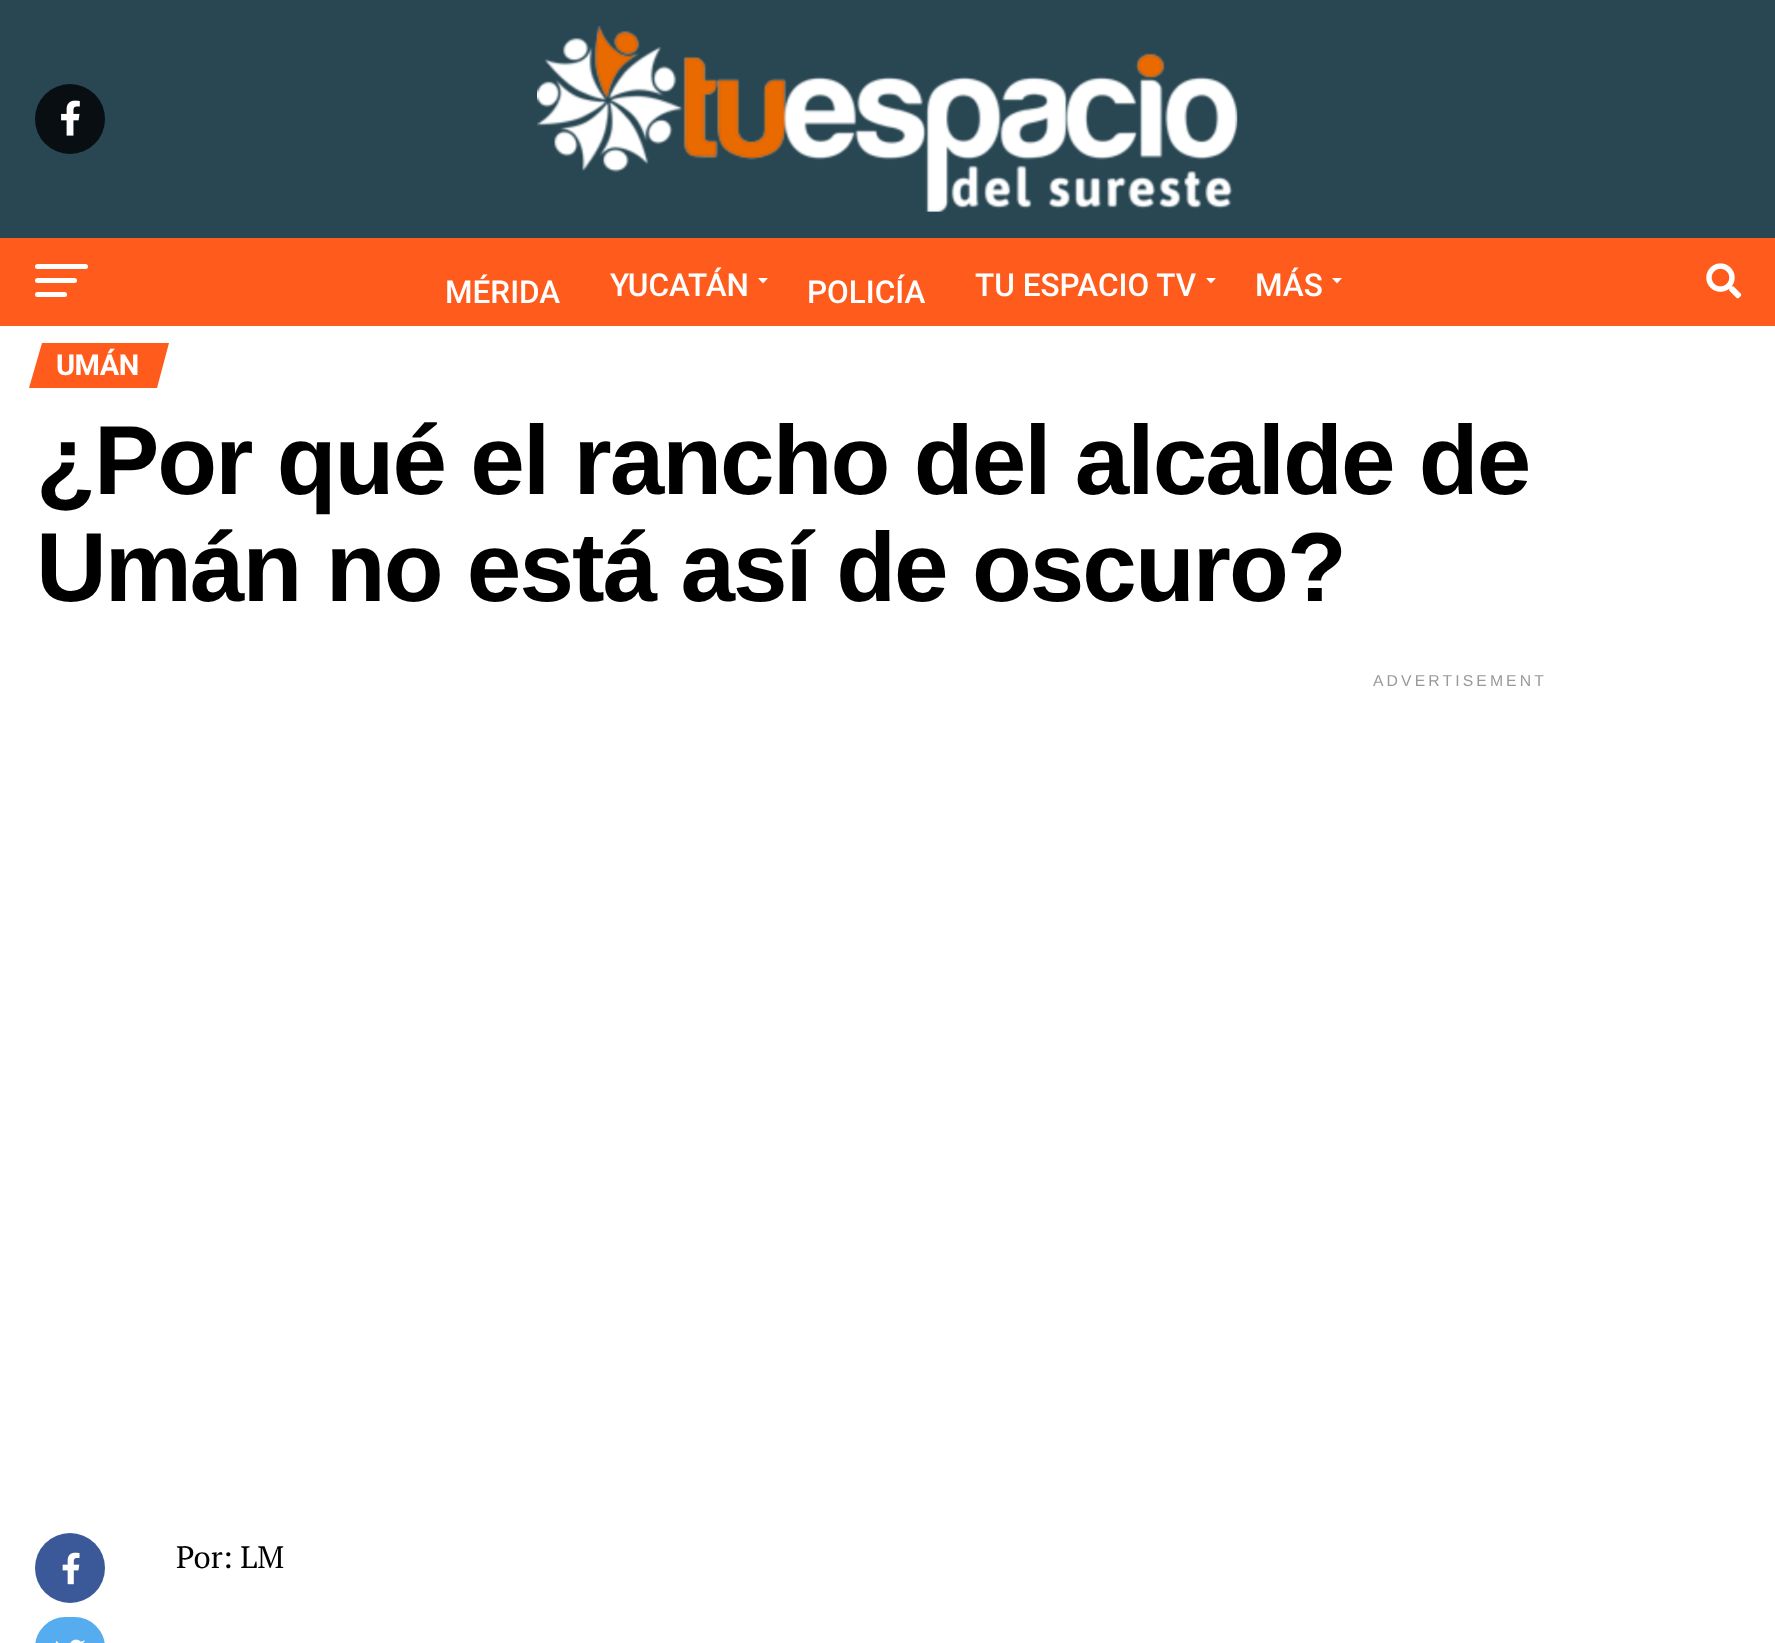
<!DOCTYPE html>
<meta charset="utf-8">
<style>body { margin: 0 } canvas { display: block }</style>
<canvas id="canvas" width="1775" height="1643"></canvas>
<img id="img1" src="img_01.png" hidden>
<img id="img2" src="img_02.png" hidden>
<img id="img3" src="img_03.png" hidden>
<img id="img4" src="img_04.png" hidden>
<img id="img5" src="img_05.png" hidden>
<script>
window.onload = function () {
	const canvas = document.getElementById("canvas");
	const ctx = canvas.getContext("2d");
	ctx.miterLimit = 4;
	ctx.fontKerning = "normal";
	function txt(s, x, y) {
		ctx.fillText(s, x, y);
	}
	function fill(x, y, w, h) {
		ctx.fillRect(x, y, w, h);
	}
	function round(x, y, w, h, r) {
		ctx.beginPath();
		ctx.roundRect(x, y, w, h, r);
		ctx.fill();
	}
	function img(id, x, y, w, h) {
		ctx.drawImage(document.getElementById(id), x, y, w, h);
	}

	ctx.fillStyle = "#FFFFFF";
	fill(0, 0, 1775, 1643);
	ctx.fillStyle = "#284753";
	fill(0, 0, 1775, 238);
	ctx.fillStyle = "#080E11";
	ctx.beginPath();
	ctx.arc(70, 119, 35, 0, Math.PI * 2);
	ctx.fill();
	img("img1", 61, 100, 19, 36);
	img("img2", 537, 26, 701, 186);
	ctx.fillStyle = "#FF5B1C";
	fill(0, 238, 1775, 88);
	ctx.fillStyle = "#FFFFFF";
	round(35, 264, 53, 5, 2.5);
	round(35, 278, 42, 5, 2.5);
	round(35, 292, 32, 5, 2.5);
	ctx.beginPath();
	ctx.moveTo(758, 278);
	ctx.lineTo(768, 278);
	ctx.lineTo(763, 283.5);
	ctx.closePath();
	ctx.fill();
	ctx.beginPath();
	ctx.moveTo(1206, 278);
	ctx.lineTo(1216, 278);
	ctx.lineTo(1211, 283.5);
	ctx.closePath();
	ctx.fill();
	ctx.beginPath();
	ctx.moveTo(1332, 278);
	ctx.lineTo(1342, 278);
	ctx.lineTo(1337, 283.5);
	ctx.closePath();
	ctx.fill();
	img("img3", 1706, 263, 36, 36);
	ctx.fillStyle = "#FF5B1C";
	ctx.beginPath();
	ctx.moveTo(42, 343);
	ctx.lineTo(169, 343);
	ctx.lineTo(157, 388);
	ctx.lineTo(29, 388);
	ctx.closePath();
	ctx.fill();
	ctx.fillStyle = "#3B5998";
	ctx.beginPath();
	ctx.arc(70, 1568, 35, 0, Math.PI * 2);
	ctx.fill();
	img("img4", 62, 1552, 18, 33);
	ctx.fillStyle = "#55ACEE";
	round(35, 1617, 70, 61, 35);
	img("img5", 55, 1639, 31, 4);
	ctx.font = "500 31.5px Roboto";
	ctx.fillStyle = "#FFFFFF";
	txt("MÉRIDA", 445, 303);
	txt("YUCATÁN", 610, 296);
	txt("POLICÍA", 807, 303);
	txt("TU ESPACIO TV", 975, 296);
	txt("MÁS", 1255, 296);
	ctx.letterSpacing = "-0.5px";
	ctx.font = "bold 29px Roboto";
	txt("UMÁN", 56, 375);
	ctx.letterSpacing = "-1.95px";
	ctx.font = "bold 98px Liberation Sans";
	ctx.fillStyle = "#000000";
	txt("¿Por qué el rancho del alcalde de", 36, 494);
	txt("Umán no está así de oscuro?", 36, 601);
	ctx.letterSpacing = "3.1px";
	ctx.font = "15.75px Liberation Sans";
	ctx.fillStyle = "#999999";
	txt("ADVERTISEMENT", 1373, 686);
	ctx.letterSpacing = "0px";
	ctx.font = "31px PT Serif";
	ctx.fillStyle = "#000000";
	txt("Por: LM", 176, 1568);
};
</script>
